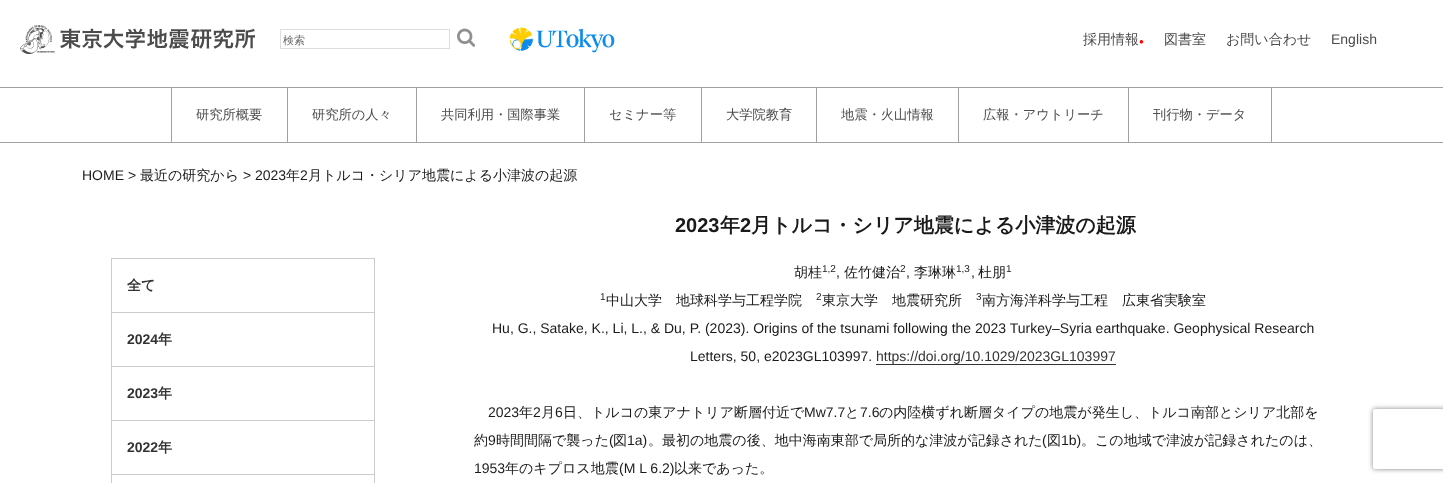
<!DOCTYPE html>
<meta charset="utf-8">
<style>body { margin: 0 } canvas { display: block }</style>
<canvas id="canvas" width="1443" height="483"></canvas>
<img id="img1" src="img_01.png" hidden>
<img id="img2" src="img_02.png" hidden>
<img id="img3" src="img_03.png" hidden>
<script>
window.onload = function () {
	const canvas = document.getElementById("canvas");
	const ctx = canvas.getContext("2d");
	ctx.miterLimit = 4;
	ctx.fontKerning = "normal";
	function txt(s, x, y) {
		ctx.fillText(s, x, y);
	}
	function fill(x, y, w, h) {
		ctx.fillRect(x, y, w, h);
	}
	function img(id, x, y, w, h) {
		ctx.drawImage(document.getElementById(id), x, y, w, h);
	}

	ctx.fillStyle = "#FFFFFF";
	fill(0, 0, 1443, 483);
	img("img1", 20, 25, 235, 29);
	ctx.strokeStyle = "#DDDDDD";
	ctx.strokeRect(280.5, 29.5, 169, 19);
	img("img2", 457, 28, 18, 19);
	img("img3", 509, 27, 106, 26);
	ctx.fillStyle = "#A5A0A0";
	fill(0, 87, 1443, 1);
	fill(0, 142, 1443, 1);
	fill(171, 88, 1, 54);
	fill(287, 88, 1, 54);
	fill(416, 88, 1, 54);
	fill(584, 88, 1, 54);
	fill(701, 88, 1, 54);
	fill(816, 88, 1, 54);
	fill(958, 88, 1, 54);
	fill(1271, 88, 1, 54);
	fill(1128, 88, 1, 54);
	ctx.fillStyle = "#CCCCCC";
	fill(111, 258, 264, 1);
	fill(374, 258, 1, 54);
	fill(111, 258, 1, 54);
	fill(111, 312, 264, 1);
	fill(374, 312, 1, 54);
	fill(111, 312, 1, 54);
	fill(111, 366, 264, 1);
	fill(374, 366, 1, 54);
	fill(111, 366, 1, 54);
	fill(111, 420, 264, 1);
	fill(374, 420, 1, 54);
	fill(111, 420, 1, 54);
	fill(111, 474, 264, 1);
	fill(374, 474, 1, 9);
	fill(111, 474, 1, 9);
	ctx.fillStyle = "#333333";
	fill(876, 364, 240, 1);
	ctx.save();
	ctx.beginPath();
	ctx.moveTo(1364, 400);
	ctx.lineTo(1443, 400);
	ctx.lineTo(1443, 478);
	ctx.lineTo(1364, 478);
	ctx.closePath();
	ctx.moveTo(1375, 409);
	ctx.lineTo(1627, 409);
	ctx.bezierCurveTo(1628, 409, 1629, 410, 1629, 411);
	ctx.lineTo(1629, 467);
	ctx.bezierCurveTo(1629, 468, 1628, 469, 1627, 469);
	ctx.lineTo(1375, 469);
	ctx.bezierCurveTo(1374, 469, 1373, 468, 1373, 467);
	ctx.lineTo(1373, 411);
	ctx.bezierCurveTo(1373, 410, 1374, 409, 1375, 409);
	ctx.closePath();
	ctx.clip("evenodd");
	ctx.fillStyle = "#808080";
	ctx.filter = "blur(2.5px)";
	ctx.beginPath();
	ctx.roundRect(1373, 409, 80, 60, 2);
	ctx.fill();
	ctx.filter = "none";
	ctx.restore();
	ctx.font = "500 11px WenQuanYi Zen Hei";
	ctx.fillStyle = "#686868";
	txt("検索", 283, 44);
	ctx.font = "500 14px WenQuanYi Zen Hei";
	ctx.fillStyle = "#4C4C4C";
	txt("採用情報", 1083, 44);
	ctx.font = "8px Liberation Sans";
	ctx.fillStyle = "#FF0000";
	txt("●", 1139, 44);
	ctx.font = "500 14px WenQuanYi Zen Hei";
	ctx.fillStyle = "#4C4C4C";
	txt("図書室", 1164, 44);
	txt("お問い合わせ", 1226, 44);
	ctx.font = "14px Liberation Sans";
	txt("English", 1331, 44);
	ctx.font = "500 13.25px WenQuanYi Zen Hei";
	txt("研究所概要", 196, 119);
	txt("研究所の人々", 312, 119);
	txt("共同利用・国際事業", 441, 119);
	txt("セミナー等", 609, 119);
	txt("大学院教育", 726, 119);
	txt("地震・火山情報", 841, 119);
	txt("広報・アウトリーチ", 983, 119);
	txt("刊行物・データ", 1153, 119);
	ctx.font = "14px Liberation Sans";
	ctx.fillStyle = "#1A1A1A";
	txt("HOME >", 82, 180);
	ctx.font = "500 14px WenQuanYi Zen Hei";
	txt("最近の研究から", 140, 180);
	ctx.font = "14px Liberation Sans";
	txt(">", 243, 180);
	txt("2023", 255, 180);
	ctx.font = "500 14px WenQuanYi Zen Hei";
	txt("年", 286, 180);
	ctx.font = "14px Liberation Sans";
	txt("2", 300, 180);
	ctx.font = "500 14px WenQuanYi Zen Hei";
	txt("月トルコ・シリア地震による小津波の起源", 308, 180);
	ctx.font = "bold 14px WenQuanYi Zen Hei";
	ctx.fillStyle = "#333333";
	txt("全て", 127, 290);
	ctx.font = "bold 14px Liberation Sans";
	txt("2024", 127, 344);
	ctx.font = "bold 14px WenQuanYi Zen Hei";
	txt("年", 158, 344);
	ctx.font = "bold 14px Liberation Sans";
	txt("2023", 127, 398);
	ctx.font = "bold 14px WenQuanYi Zen Hei";
	txt("年", 158, 398);
	ctx.font = "bold 14px Liberation Sans";
	txt("2022", 127, 452);
	ctx.font = "bold 14px WenQuanYi Zen Hei";
	txt("年", 158, 452);
	ctx.font = "bold 20px Liberation Sans";
	ctx.fillStyle = "#1A1A1A";
	txt("2023", 675, 232);
	ctx.font = "bold 20px WenQuanYi Zen Hei";
	txt("年", 720, 232);
	ctx.font = "bold 20px Liberation Sans";
	txt("2", 740, 232);
	ctx.font = "bold 20px WenQuanYi Zen Hei";
	txt("月トルコ・シリア地震による小津波の起源", 751, 232);
	ctx.font = "500 14px WenQuanYi Zen Hei";
	txt("胡桂", 794, 277);
	ctx.font = "10px Liberation Sans";
	txt("1,2", 822, 272);
	ctx.font = "14px Liberation Sans";
	txt(",", 836, 277);
	ctx.font = "500 14px WenQuanYi Zen Hei";
	txt("佐竹健治", 844, 277);
	ctx.font = "10px Liberation Sans";
	txt("2", 900, 272);
	ctx.font = "14px Liberation Sans";
	txt(",", 906, 277);
	ctx.font = "500 14px WenQuanYi Zen Hei";
	txt("李琳琳", 914, 277);
	ctx.font = "10px Liberation Sans";
	txt("1,3", 956, 272);
	ctx.font = "14px Liberation Sans";
	txt(",", 971, 277);
	ctx.font = "500 14px WenQuanYi Zen Hei";
	txt("杜朋", 978, 277);
	ctx.font = "10px Liberation Sans";
	txt("1", 1006, 272);
	txt("1", 600, 300);
	ctx.font = "500 14px WenQuanYi Zen Hei";
	txt("中山大学　地球科学与工程学院", 606, 305);
	ctx.font = "10px Liberation Sans";
	txt("2", 816, 300);
	ctx.font = "500 14px WenQuanYi Zen Hei";
	txt("東京大学　地震研究所", 822, 305);
	ctx.font = "10px Liberation Sans";
	txt("3", 976, 300);
	ctx.font = "500 14px WenQuanYi Zen Hei";
	txt("南方海洋科学与工程　広東省実験室", 982, 305);
	ctx.font = "14px Liberation Sans";
	txt("Hu, G., Satake, K., Li, L., & Du, P. (2023). Origins of the tsunami following the 2023 Turkey–Syria earthquake. Geophysical Research", 492, 333);
	txt("Letters, 50, e2023GL103997.", 690, 361);
	ctx.fillStyle = "#333333";
	txt("https://doi.org/10.1029/2023GL103997", 876, 361);
	ctx.fillStyle = "#1A1A1A";
	txt("2023", 488, 417);
	ctx.font = "500 14px WenQuanYi Zen Hei";
	txt("年", 519, 417);
	ctx.font = "14px Liberation Sans";
	txt("2", 533, 417);
	ctx.font = "500 14px WenQuanYi Zen Hei";
	txt("月", 541, 417);
	ctx.font = "14px Liberation Sans";
	txt("6", 555, 417);
	ctx.font = "500 14px WenQuanYi Zen Hei";
	txt("日、トルコの東アナトリア断層付近で", 563, 417);
	ctx.font = "14px Liberation Sans";
	txt("Mw7.7", 804, 417);
	ctx.font = "500 14px WenQuanYi Zen Hei";
	txt("と", 845, 417);
	ctx.font = "14px Liberation Sans";
	txt("7.6", 860, 417);
	ctx.font = "500 14px WenQuanYi Zen Hei";
	txt("の内陸横ずれ断層タイプの地震が発生し、トルコ南部とシリア北部を", 879, 417);
	txt("約", 474, 445);
	ctx.font = "14px Liberation Sans";
	txt("9", 488, 445);
	ctx.font = "500 14px WenQuanYi Zen Hei";
	txt("時間間隔で襲った", 496, 445);
	ctx.font = "14px Liberation Sans";
	txt("(", 609, 445);
	ctx.font = "500 14px WenQuanYi Zen Hei";
	txt("図", 613, 445);
	ctx.font = "14px Liberation Sans";
	txt("1a)", 627, 445);
	ctx.font = "500 14px WenQuanYi Zen Hei";
	txt("。最初の地震の後、地中海南東部で局所的な津波が記録された", 648, 445);
	ctx.font = "14px Liberation Sans";
	txt("(", 1042, 445);
	ctx.font = "500 14px WenQuanYi Zen Hei";
	txt("図", 1047, 445);
	ctx.font = "14px Liberation Sans";
	txt("1b)", 1061, 445);
	ctx.font = "500 14px WenQuanYi Zen Hei";
	txt("。この地域で津波が記録されたのは、", 1081, 445);
	ctx.font = "14px Liberation Sans";
	txt("1953", 474, 473);
	ctx.font = "500 14px WenQuanYi Zen Hei";
	txt("年のキプロス地震", 505, 473);
	ctx.font = "14px Liberation Sans";
	txt("(M L 6.2)", 619, 473);
	ctx.font = "500 14px WenQuanYi Zen Hei";
	txt("以来であった。", 674, 473);
};
</script>
